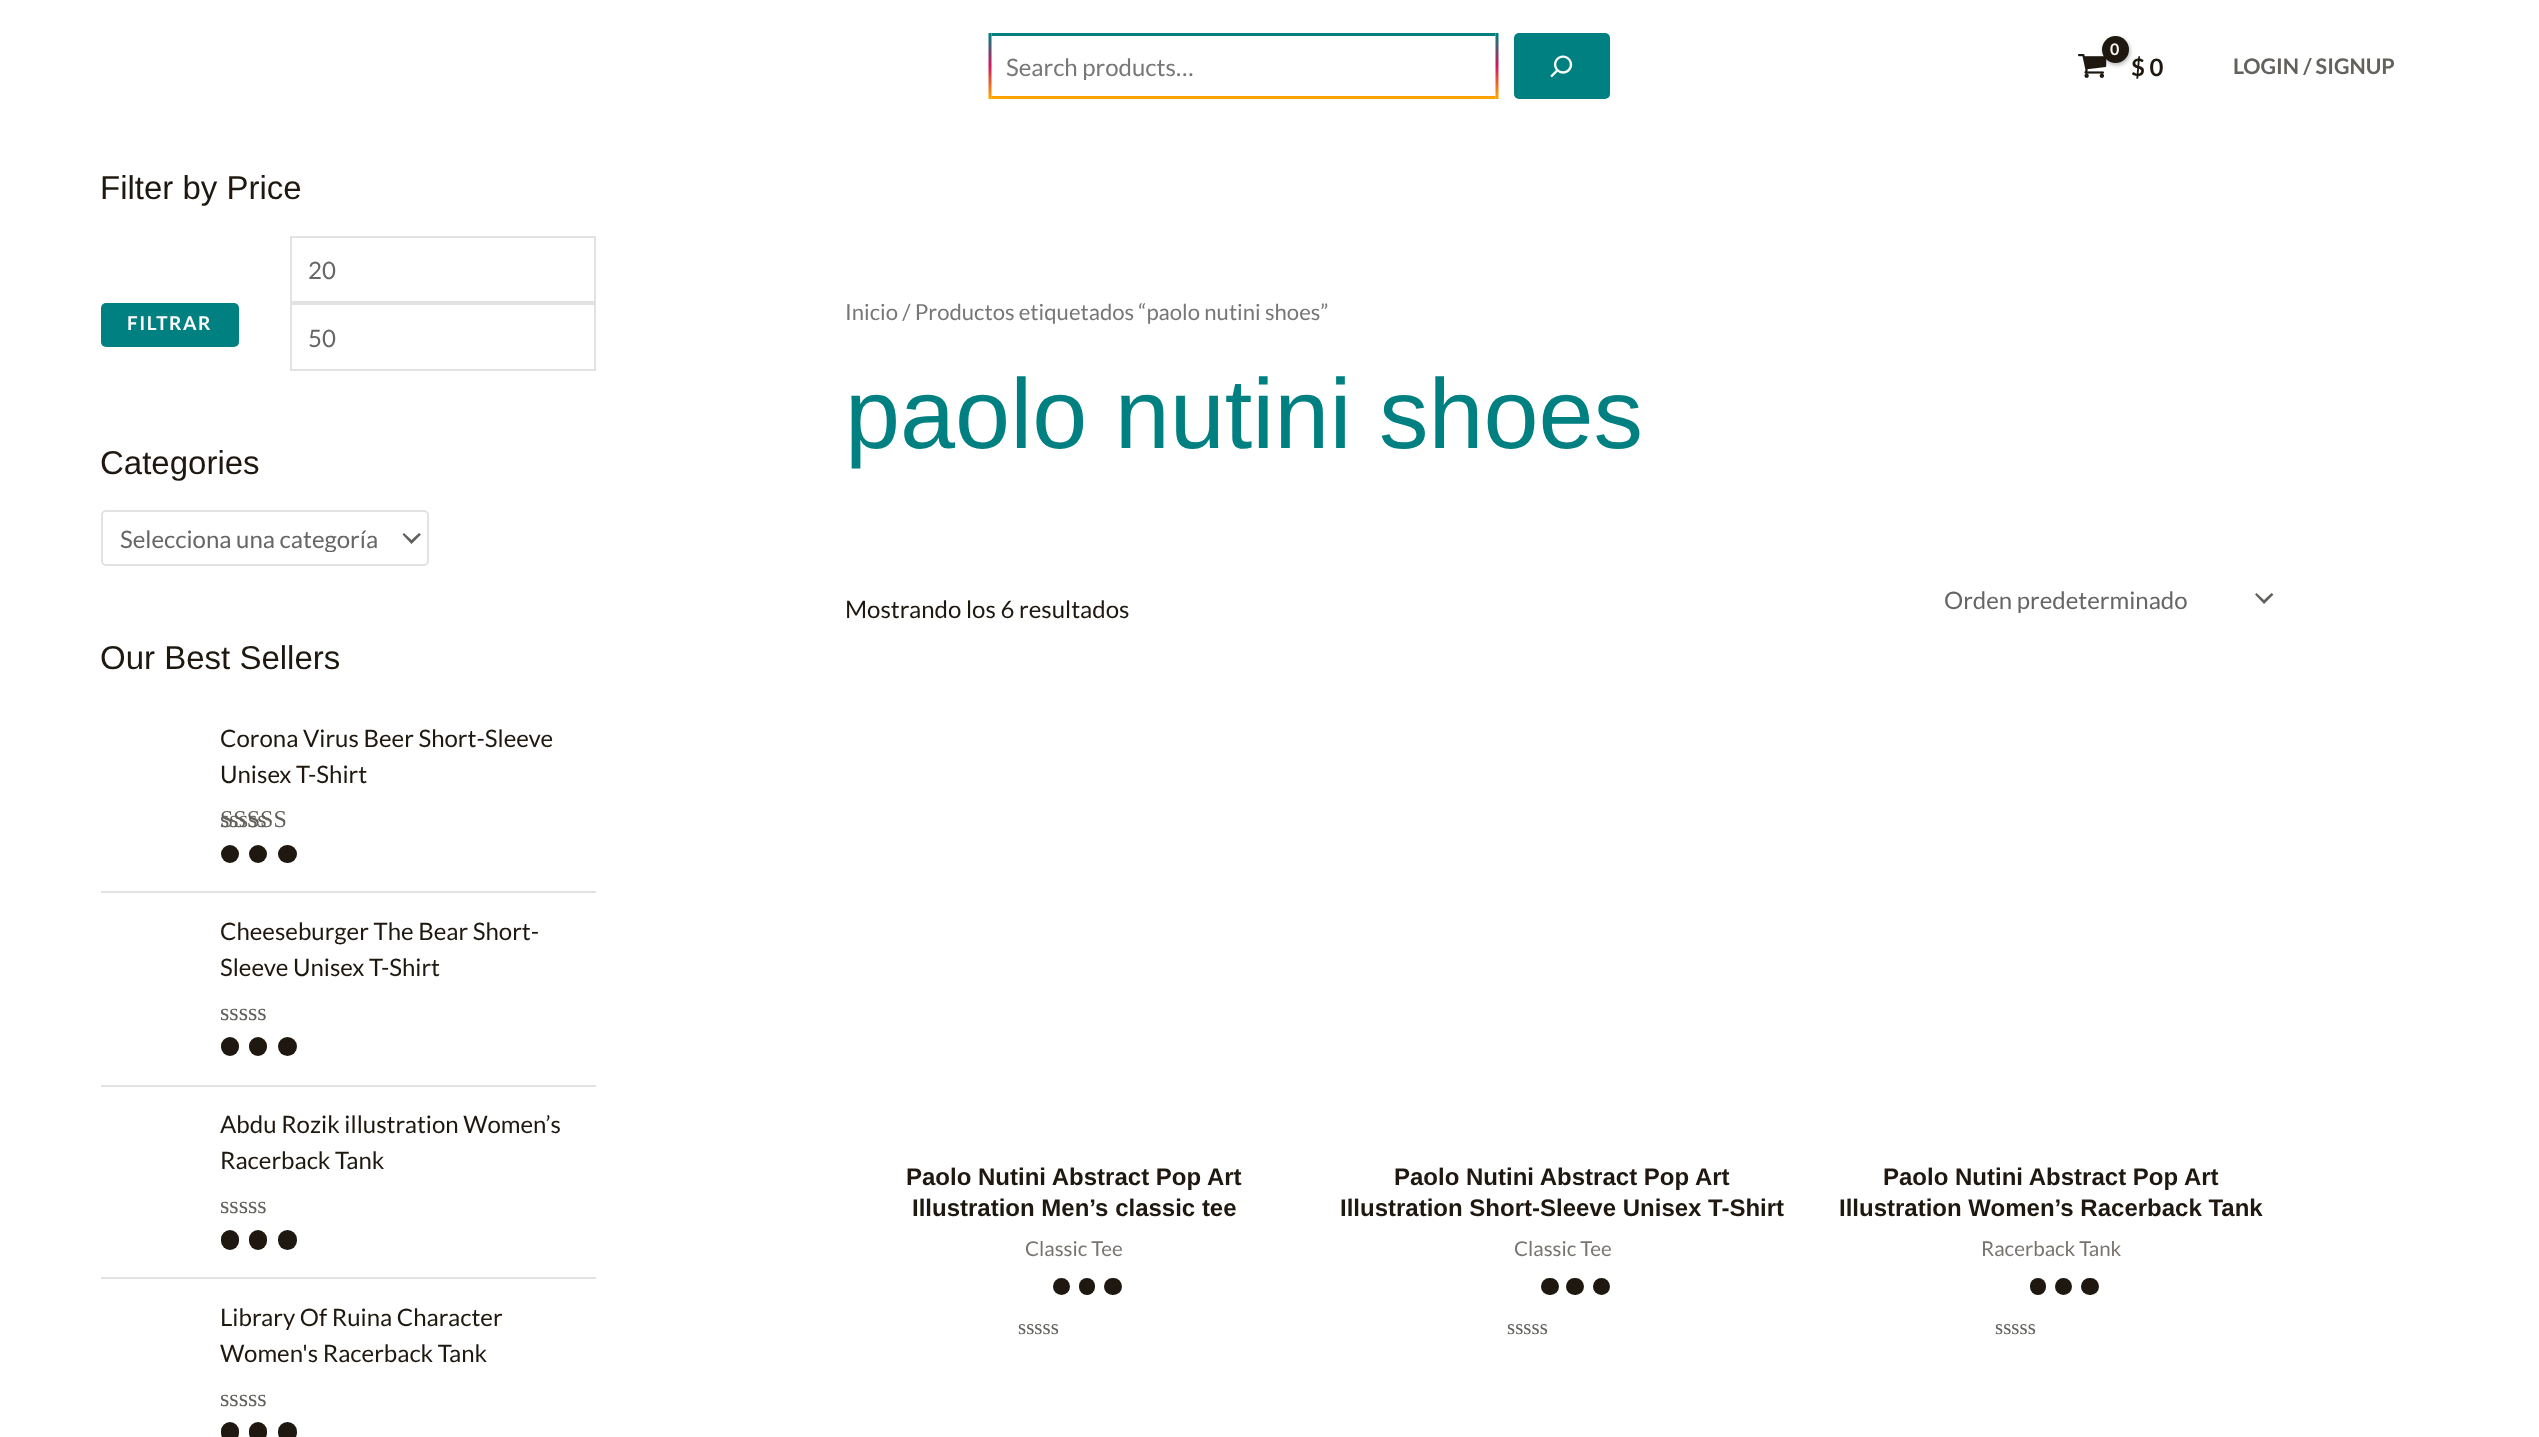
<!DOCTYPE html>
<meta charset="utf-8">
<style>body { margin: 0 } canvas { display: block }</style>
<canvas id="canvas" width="2539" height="1437"></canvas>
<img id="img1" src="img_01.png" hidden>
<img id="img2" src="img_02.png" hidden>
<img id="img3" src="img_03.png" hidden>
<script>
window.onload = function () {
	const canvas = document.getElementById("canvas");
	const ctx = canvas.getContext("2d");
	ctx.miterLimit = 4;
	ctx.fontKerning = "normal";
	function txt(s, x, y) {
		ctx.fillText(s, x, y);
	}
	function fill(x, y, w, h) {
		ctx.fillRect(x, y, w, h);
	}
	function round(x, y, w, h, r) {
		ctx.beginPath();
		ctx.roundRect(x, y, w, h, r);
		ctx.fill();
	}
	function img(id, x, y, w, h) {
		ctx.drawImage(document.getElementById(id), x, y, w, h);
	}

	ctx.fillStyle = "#FFFFFF";
	fill(0, 0, 2539, 1437);
	img("img1", 988, 33, 511, 66);
	ctx.fillStyle = "#008080";
	round(1514, 33, 96, 66, 5);
	img("img2", 1550, 55, 23, 23);
	img("img3", 2078, 54, 29, 24);
	ctx.fillStyle = "rgba(0, 0, 0, 0.3)";
	ctx.filter = "blur(2px)";
	ctx.beginPath();
	ctx.roundRect(2103, 38, 27, 27, 13.5);
	ctx.fill();
	ctx.filter = "none";
	ctx.fillStyle = "#1E1810";
	ctx.beginPath();
	ctx.arc(2115.5, 49.5, 13.5, 0, Math.PI * 2);
	ctx.fill();
	ctx.strokeStyle = "#E2E2E2";
	ctx.lineWidth = 2;
	ctx.strokeRect(291, 237, 304, 65);
	ctx.fillStyle = "#008080";
	round(101, 303, 138, 44, 5);
	ctx.strokeRect(291, 304, 304, 66);
	ctx.fillStyle = "#62615C";
	ctx.beginPath();
	ctx.moveTo(402.5, 534.5);
	ctx.lineTo(411.5, 544);
	ctx.lineTo(421, 534.5);
	ctx.lineTo(419, 533);
	ctx.lineTo(411.5, 540);
	ctx.lineTo(404, 533);
	ctx.closePath();
	ctx.fill();
	ctx.beginPath();
	ctx.roundRect(102, 511, 326, 54, 4);
	ctx.stroke();
	ctx.fillStyle = "#E2E2E2";
	fill(101, 891, 495, 2);
	ctx.fillStyle = "#1E1810";
	ctx.beginPath();
	ctx.arc(258, 854, 9, 0, Math.PI * 2);
	ctx.fill();
	ctx.beginPath();
	ctx.arc(230, 854, 9, 0, Math.PI * 2);
	ctx.fill();
	round(278, 845, 19, 18, 9);
	ctx.fillStyle = "#E2E2E2";
	fill(101, 1085, 495, 2);
	ctx.fillStyle = "#1E1810";
	round(249, 1037, 18, 19, 9);
	round(221, 1037, 18, 19, 9);
	ctx.beginPath();
	ctx.arc(287.5, 1046.5, 9.5, 0, Math.PI * 2);
	ctx.fill();
	ctx.fillStyle = "#E2E2E2";
	fill(101, 1277, 495, 2);
	ctx.fillStyle = "#1E1810";
	round(249, 1230, 18, 20, 9);
	round(221, 1230, 18, 20, 9);
	round(278, 1230, 19, 20, 9.5);
	round(249, 1422, 18, 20, 9);
	round(221, 1422, 18, 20, 9);
	round(278, 1422, 19, 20, 9.5);
	ctx.fillStyle = "#62615C";
	ctx.beginPath();
	ctx.moveTo(2255, 594.5);
	ctx.lineTo(2264, 604);
	ctx.lineTo(2273.5, 594.5);
	ctx.lineTo(2271.5, 593);
	ctx.lineTo(2264, 600);
	ctx.lineTo(2256.5, 593);
	ctx.closePath();
	ctx.fill();
	ctx.fillStyle = "#1E1810";
	round(1079, 1278, 16, 17, 8);
	ctx.beginPath();
	ctx.arc(1061.5, 1286.5, 8.5, 0, Math.PI * 2);
	ctx.fill();
	round(1104, 1278, 18, 17, 8.5);
	round(1566, 1278, 18, 17, 8.5);
	round(1541, 1278, 18, 17, 8.5);
	ctx.beginPath();
	ctx.arc(1601.5, 1286.5, 8.5, 0, Math.PI * 2);
	ctx.fill();
	ctx.beginPath();
	ctx.arc(2063.5, 1286.5, 8.5, 0, Math.PI * 2);
	ctx.fill();
	round(2030, 1278, 16, 17, 8);
	round(2081, 1278, 18, 17, 8.5);
	ctx.save();
	ctx.beginPath();
	ctx.rect(1007, 51, 468, 29);
	ctx.clip();
	ctx.font = "24px Lato";
	ctx.fillStyle = "#777777";
	txt("Search products…", 1006, 76);
	ctx.restore();
	ctx.letterSpacing = "-1px";
	ctx.font = "bold 16px Lato";
	ctx.fillStyle = "#F8F7F3";
	txt("0", 2110, 55);
	ctx.letterSpacing = "0px";
	ctx.font = "bold 24px Lato";
	ctx.fillStyle = "#1E1810";
	txt("$ 0", 2131, 76);
	ctx.font = "bold 21.5px Lato";
	ctx.fillStyle = "#62615C";
	txt("LOGIN / SIGNUP", 2233, 74);
	ctx.font = "33px Liberation Sans";
	ctx.fillStyle = "#1E1810";
	txt("Filter by Price", 100, 199);
	ctx.font = "24px Lato";
	ctx.fillStyle = "#666666";
	txt("20", 308, 279);
	ctx.letterSpacing = "1.5px";
	ctx.font = "bold 19px Lato";
	ctx.fillStyle = "#FFFFFF";
	txt("FILTRAR", 127, 330);
	ctx.letterSpacing = "0px";
	ctx.font = "24px Lato";
	ctx.fillStyle = "#666666";
	txt("50", 308, 347);
	ctx.font = "33px Liberation Sans";
	ctx.fillStyle = "#1E1810";
	txt("Categories", 100, 474);
	ctx.save();
	ctx.beginPath();
	ctx.rect(120, 524, 260, 28);
	ctx.clip();
	ctx.font = "24px Lato";
	ctx.fillStyle = "#666666";
	txt("Selecciona una categoría", 120, 548);
	ctx.restore();
	txt("Our Best Sellers", 100, 669);
	ctx.font = "24px Lato";
	txt("Corona Virus Beer Short-Sleeve", 220, 747);
	txt("Unisex T-Shirt", 220, 783);
	ctx.save();
	ctx.beginPath();
	ctx.rect(221, 807, 129, 24);
	ctx.clip();
	ctx.font = "24px Liberation Serif";
	ctx.fillStyle = "#62615C";
	txt("sssss", 220, 827);
	ctx.restore();
	ctx.font = "24px Liberation Serif";
	ctx.fillStyle = "#62615C";
	txt("SSSSS", 220, 827);
	ctx.font = "24px Lato";
	ctx.fillStyle = "#1E1810";
	txt("Cheeseburger The Bear Short-", 220, 940);
	txt("Sleeve Unisex T-Shirt", 220, 976);
	ctx.save();
	ctx.beginPath();
	ctx.rect(221, 1001, 129, 24);
	ctx.clip();
	ctx.font = "24px Liberation Serif";
	ctx.fillStyle = "#62615C";
	txt("sssss", 220, 1020);
	ctx.restore();
	txt("Abdu Rozik illustration Women’s", 220, 1133);
	txt("Racerback Tank", 220, 1169);
	ctx.save();
	ctx.beginPath();
	ctx.rect(221, 1194, 129, 24);
	ctx.clip();
	ctx.font = "24px Liberation Serif";
	ctx.fillStyle = "#62615C";
	txt("sssss", 220, 1213);
	ctx.restore();
	txt("Library Of Ruina Character", 220, 1326);
	txt("Women's Racerback Tank", 220, 1362);
	ctx.save();
	ctx.beginPath();
	ctx.rect(221, 1386, 129, 24);
	ctx.clip();
	ctx.font = "24px Liberation Serif";
	ctx.fillStyle = "#62615C";
	txt("sssss", 220, 1406);
	ctx.restore();
	ctx.font = "22.1px Lato";
	ctx.fillStyle = "#777777";
	txt("Inicio / Productos etiquetados “paolo nutini shoes”", 845, 320);
	ctx.font = "99px Liberation Sans";
	ctx.fillStyle = "#008080";
	txt("paolo nutini shoes", 845, 448);
	ctx.font = "24px Lato";
	ctx.fillStyle = "#1E1810";
	txt("Mostrando los 6 resultados", 845, 618);
	ctx.fillStyle = "#666666";
	txt("Orden predeterminado", 1944, 609);
	ctx.font = "bold 24px Liberation Sans";
	ctx.fillStyle = "#1E1810";
	txt("Paolo Nutini Abstract Pop Art", 906, 1185);
	txt("Illustration Men’s classic tee", 912, 1216);
	ctx.font = "20.5px Lato";
	ctx.fillStyle = "#787470";
	txt("Classic Tee", 1025, 1256);
	ctx.font = "21px Liberation Serif";
	ctx.fillStyle = "#62615C";
	txt("sssss", 1018, 1334);
	ctx.font = "bold 24px Liberation Sans";
	ctx.fillStyle = "#1E1810";
	txt("Paolo Nutini Abstract Pop Art", 1394, 1185);
	txt("Illustration Short-Sleeve Unisex T-Shirt", 1340, 1216);
	ctx.font = "20.5px Lato";
	ctx.fillStyle = "#787470";
	txt("Classic Tee", 1514, 1256);
	ctx.font = "21px Liberation Serif";
	ctx.fillStyle = "#62615C";
	txt("sssss", 1507, 1334);
	ctx.font = "bold 24px Liberation Sans";
	ctx.fillStyle = "#1E1810";
	txt("Paolo Nutini Abstract Pop Art", 1883, 1185);
	txt("Illustration Women’s Racerback Tank", 1839, 1216);
	ctx.font = "20.5px Lato";
	ctx.fillStyle = "#787470";
	txt("Racerback Tank", 1981, 1256);
	ctx.font = "21px Liberation Serif";
	ctx.fillStyle = "#62615C";
	txt("sssss", 1995, 1334);
};
</script>
